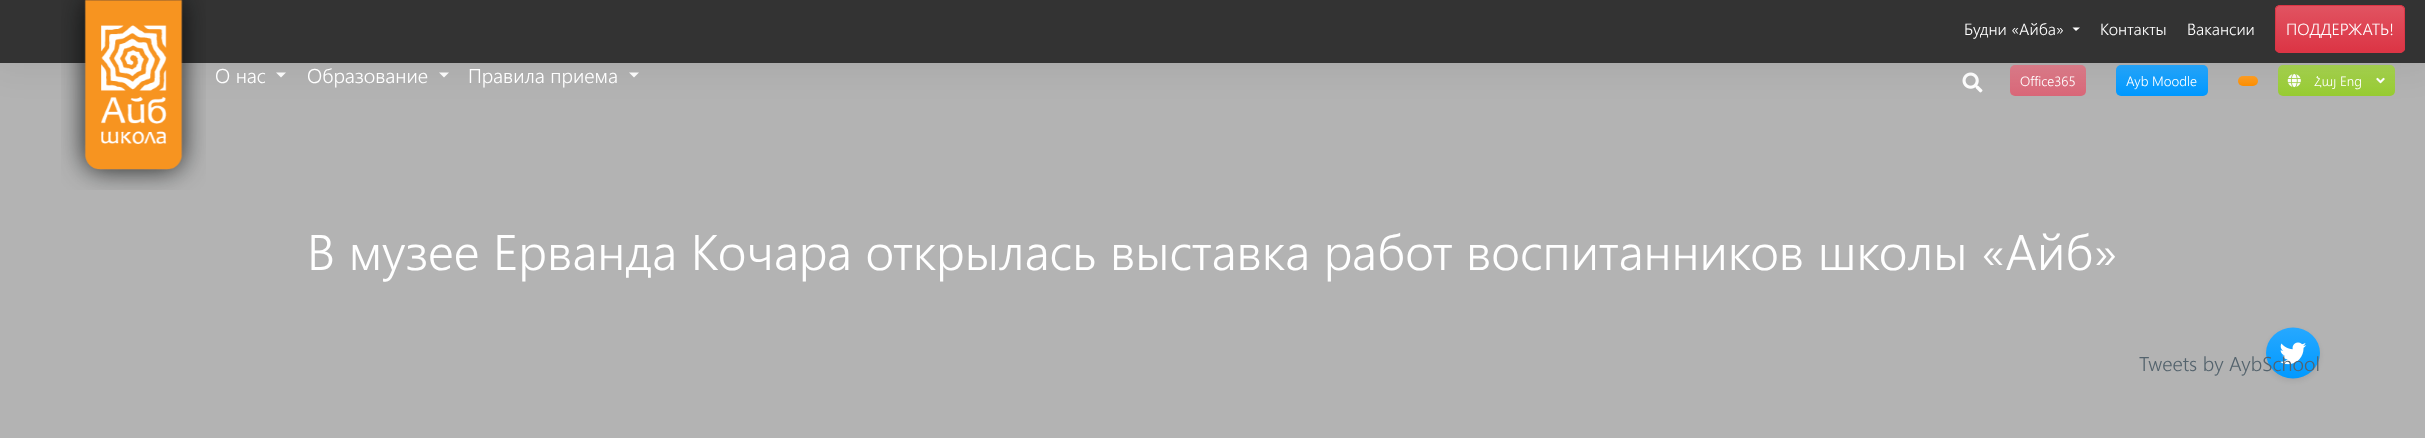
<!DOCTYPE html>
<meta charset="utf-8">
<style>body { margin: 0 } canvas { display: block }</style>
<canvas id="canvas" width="2425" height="438"></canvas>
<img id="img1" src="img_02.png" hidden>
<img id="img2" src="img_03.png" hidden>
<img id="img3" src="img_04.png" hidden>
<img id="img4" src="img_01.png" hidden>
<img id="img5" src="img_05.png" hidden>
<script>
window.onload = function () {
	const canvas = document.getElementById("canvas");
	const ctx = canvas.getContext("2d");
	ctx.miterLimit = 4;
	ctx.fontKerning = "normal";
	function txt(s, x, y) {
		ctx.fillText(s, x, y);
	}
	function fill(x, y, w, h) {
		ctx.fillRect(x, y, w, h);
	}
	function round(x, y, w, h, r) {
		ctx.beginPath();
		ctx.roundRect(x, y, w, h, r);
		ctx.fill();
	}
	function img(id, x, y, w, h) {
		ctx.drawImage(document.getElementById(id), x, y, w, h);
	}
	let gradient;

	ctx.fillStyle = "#B3B3B3";
	fill(0, 0, 2425, 438);
	ctx.fillStyle = "#FFFFFF";
	ctx.beginPath();
	ctx.moveTo(276, 72.5);
	ctx.lineTo(286, 72.5);
	ctx.lineTo(281, 77.5);
	ctx.closePath();
	ctx.fill();
	ctx.beginPath();
	ctx.moveTo(439, 72.5);
	ctx.lineTo(449, 72.5);
	ctx.lineTo(444, 77.5);
	ctx.closePath();
	ctx.fill();
	ctx.beginPath();
	ctx.moveTo(629, 72.5);
	ctx.lineTo(639, 72.5);
	ctx.lineTo(634, 77.5);
	ctx.closePath();
	ctx.fill();
	img("img1", 1962, 72, 21, 21);
	gradient = ctx.createLinearGradient(2048, 65, 2048, 96);
	gradient.addColorStop(0, "#DF7E8C");
	gradient.addColorStop(1, "#D96778");
	ctx.fillStyle = gradient;
	round(2010, 65, 76, 31, 5);
	gradient = ctx.createLinearGradient(2162, 65, 2162, 96);
	gradient.addColorStop(0, "#26A8FF");
	gradient.addColorStop(1, "#0099FF");
	ctx.fillStyle = gradient;
	round(2116, 65, 92, 31, 5);
	gradient = ctx.createLinearGradient(2248, 76, 2248, 86);
	gradient.addColorStop(0, "#FFA026");
	gradient.addColorStop(1, "#FF8F00");
	ctx.fillStyle = gradient;
	round(2238, 76, 20, 10, 5);
	gradient = ctx.createLinearGradient(2336, 65, 2336, 96);
	gradient.addColorStop(0, "#A7D451");
	gradient.addColorStop(1, "#98CC32");
	ctx.fillStyle = gradient;
	round(2278, 65, 117, 31, 5);
	img("img2", 2287, 74, 14, 14);
	img("img3", 2376, 77, 9, 7);
	ctx.fillStyle = "rgba(0, 0, 0, 0.06)";
	ctx.filter = "blur(17px)";
	ctx.beginPath();
	ctx.rect(-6, -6, 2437, 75);
	ctx.fill();
	ctx.filter = "none";
	ctx.fillStyle = "#333333";
	fill(0, 0, 2425, 63);
	img("img4", 61, 0, 145, 190);
	ctx.fillStyle = "#FFFFFF";
	ctx.beginPath();
	ctx.moveTo(2072.5, 27.5);
	ctx.lineTo(2080, 27.5);
	ctx.lineTo(2076, 31);
	ctx.closePath();
	ctx.fill();
	ctx.fillStyle = "#DC3545";
	round(2275, 5, 130, 48, 5);
	ctx.save();
	ctx.beginPath();
	ctx.roundRect(2275, 5, 130, 48, 5);
	ctx.clip();
	gradient = ctx.createLinearGradient(2340, 6.2, 2340, 51);
	gradient.addColorStop(0, "#E15361");
	gradient.addColorStop(1, "#DC3545");
	ctx.fillStyle = gradient;
	fill(2275, 6, 130, 45);
	ctx.restore();
	ctx.beginPath();
	ctx.roundRect(2275.5, 5.5, 129, 47, 4.5);
	ctx.strokeStyle = "#DC3545";
	ctx.stroke();
	ctx.fillStyle = "rgba(0, 0, 0, 0.07)";
	ctx.filter = "blur(2.5px)";
	ctx.beginPath();
	ctx.roundRect(2266, 330, 54, 51, 25.5);
	ctx.fill();
	ctx.filter = "none";
	gradient = ctx.createLinearGradient(2293, 328, 2293, 379);
	gradient.addColorStop(0, "#26A8FF");
	gradient.addColorStop(1, "#0099FF");
	ctx.fillStyle = gradient;
	ctx.beginPath();
	ctx.ellipse(2293, 353, 27, 25.5, 0, 0, Math.PI * 2);
	ctx.fill();
	img("img5", 2279, 342, 28, 23);
	ctx.font = "300 16.25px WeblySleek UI";
	ctx.fillStyle = "#FFFFFF";
	txt("Будни «Айба»", 1964, 35);
	txt("Контакты", 2100, 35);
	txt("Вакансии", 2187, 35);
	txt("ПОДДЕРЖАТЬ!", 2286, 35);
	ctx.font = "300 20px WeblySleek UI";
	txt("О нас", 215, 83);
	txt("Образование", 307, 83);
	txt("Правила приема", 468, 83);
	ctx.font = "300 13.5px WeblySleek UI";
	txt("Office365", 2020, 86);
	txt("Ayb Moodle", 2126, 86);
	txt("Հայ Eng", 2314, 86);
	ctx.font = "300 50px WeblySleek UI";
	txt("В музее Ерванда Кочара открылась выставка работ воспитанников школы «Айб»", 307, 270);
	ctx.font = "300 20px WeblySleek UI";
	ctx.fillStyle = "#54636D";
	txt("Tweets by AybSchool", 2139, 371);
};
</script>
